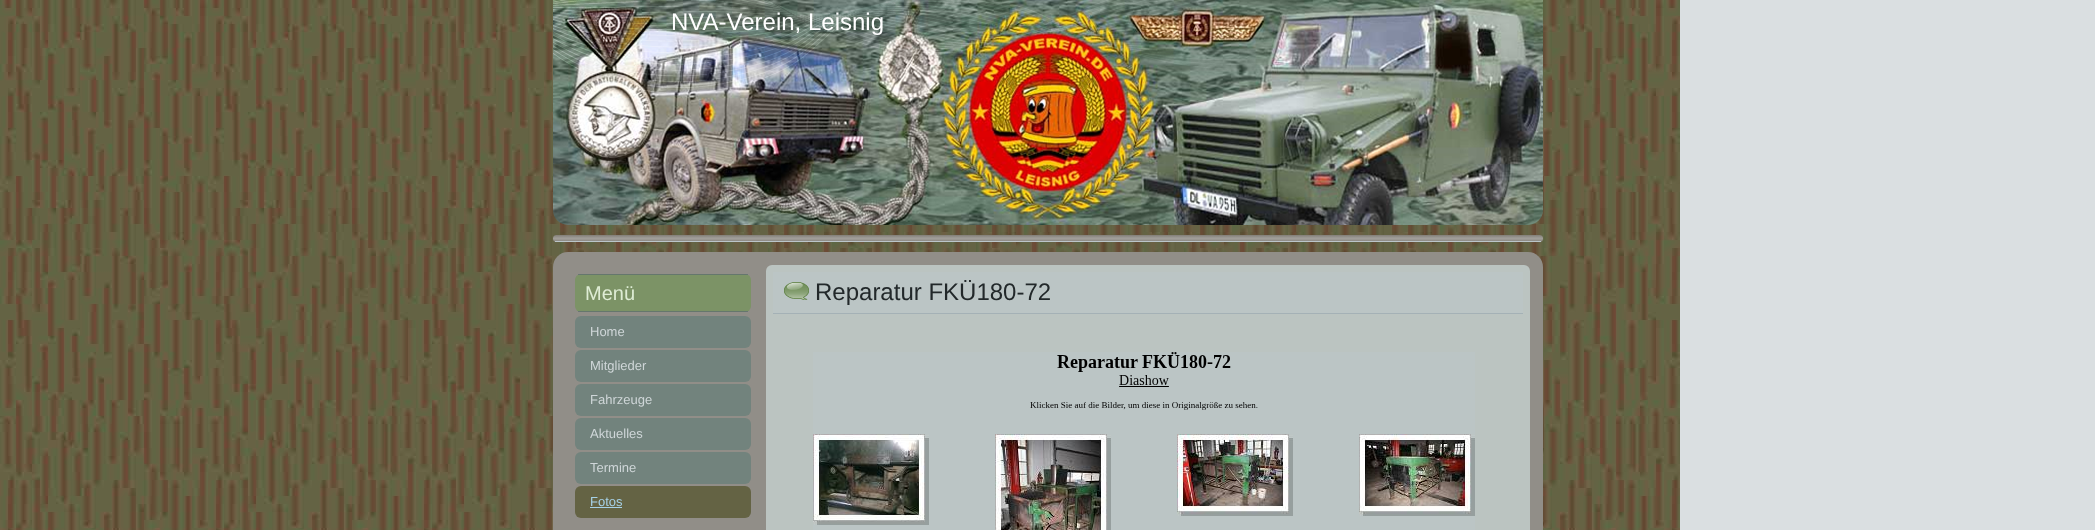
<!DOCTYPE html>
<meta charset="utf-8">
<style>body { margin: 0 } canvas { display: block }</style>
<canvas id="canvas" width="2095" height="530"></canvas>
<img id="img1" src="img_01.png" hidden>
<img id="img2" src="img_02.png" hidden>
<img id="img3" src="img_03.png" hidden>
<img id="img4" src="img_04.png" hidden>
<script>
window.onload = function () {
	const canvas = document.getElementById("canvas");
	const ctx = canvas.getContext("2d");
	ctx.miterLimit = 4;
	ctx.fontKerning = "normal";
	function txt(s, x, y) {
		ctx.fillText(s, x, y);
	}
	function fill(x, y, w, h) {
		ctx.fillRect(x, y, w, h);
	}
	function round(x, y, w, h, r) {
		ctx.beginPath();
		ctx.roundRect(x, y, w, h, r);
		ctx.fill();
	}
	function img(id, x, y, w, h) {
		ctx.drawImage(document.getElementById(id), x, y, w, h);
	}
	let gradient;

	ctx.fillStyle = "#DADFE1";
	fill(0, 0, 2095, 530);
	img("img1", 0, 0, 1680, 530);
	img("img2", 553, 0, 990, 225);
	gradient = ctx.createLinearGradient(1048, 235, 1048, 242);
	gradient.addColorStop(0, "#827F78");
	gradient.addColorStop(0.04, "#85817A");
	gradient.addColorStop(0.4, "#9D9A95");
	gradient.addColorStop(0.5, "#A09D98");
	gradient.addColorStop(0.6, "#9D9A95");
	gradient.addColorStop(0.96, "#85817A");
	gradient.addColorStop(1, "#827F78");
	ctx.fillStyle = gradient;
	round(553, 235, 990, 7, 3.5);
	ctx.fillStyle = "#BBC5C9";
	fill(555, 241, 986, 1);
	ctx.fillStyle = "#918E88";
	round(553, 252, 990, 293, 15);
	ctx.fillStyle = "#7C9366";
	round(575, 274, 176, 38, 6);
	ctx.fillStyle = "rgba(91, 107, 113, 0.7)";
	fill(578, 274, 170, 1);
	fill(578, 311, 170, 1);
	ctx.fillStyle = "#72837D";
	round(575, 316, 176, 32, 6);
	round(575, 350, 176, 32, 6);
	round(575, 384, 176, 32, 6);
	round(575, 418, 176, 32, 6);
	round(575, 452, 176, 32, 6);
	ctx.fillStyle = "#646344";
	round(575, 486, 176, 32, 6);
	ctx.fillStyle = "#A6D1E7";
	fill(590, 507, 32, 1);
	ctx.fillStyle = "#BBC4C1";
	round(766, 265, 764, 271, 6);
	ctx.fillStyle = "#BBC5C5";
	fill(773, 272, 750, 41);
	ctx.fillStyle = "#A4B1B6";
	fill(773, 313, 750, 1);
	img("img3", 784, 282, 25, 18);
	img("img4", 813, 352, 662, 178);
	ctx.font = "24px Liberation Sans";
	ctx.fillStyle = "#FFFFFF";
	txt("NVA-Verein, Leisnig", 671, 30);
	ctx.font = "20px Liberation Sans";
	ctx.fillStyle = "#DEECD4";
	txt("Menü", 585, 300);
	ctx.font = "13px Liberation Sans";
	ctx.fillStyle = "#CFD6D8";
	txt("Home", 590, 336);
	txt("Mitglieder", 590, 370);
	txt("Fahrzeuge", 590, 404);
	txt("Aktuelles", 590, 438);
	txt("Termine", 590, 472);
	ctx.fillStyle = "#A6D1E7";
	txt("Fotos", 590, 506);
	ctx.font = "24px Liberation Sans";
	ctx.fillStyle = "#22282A";
	txt("Reparatur FKÜ180-72", 815, 300);
};
</script>
